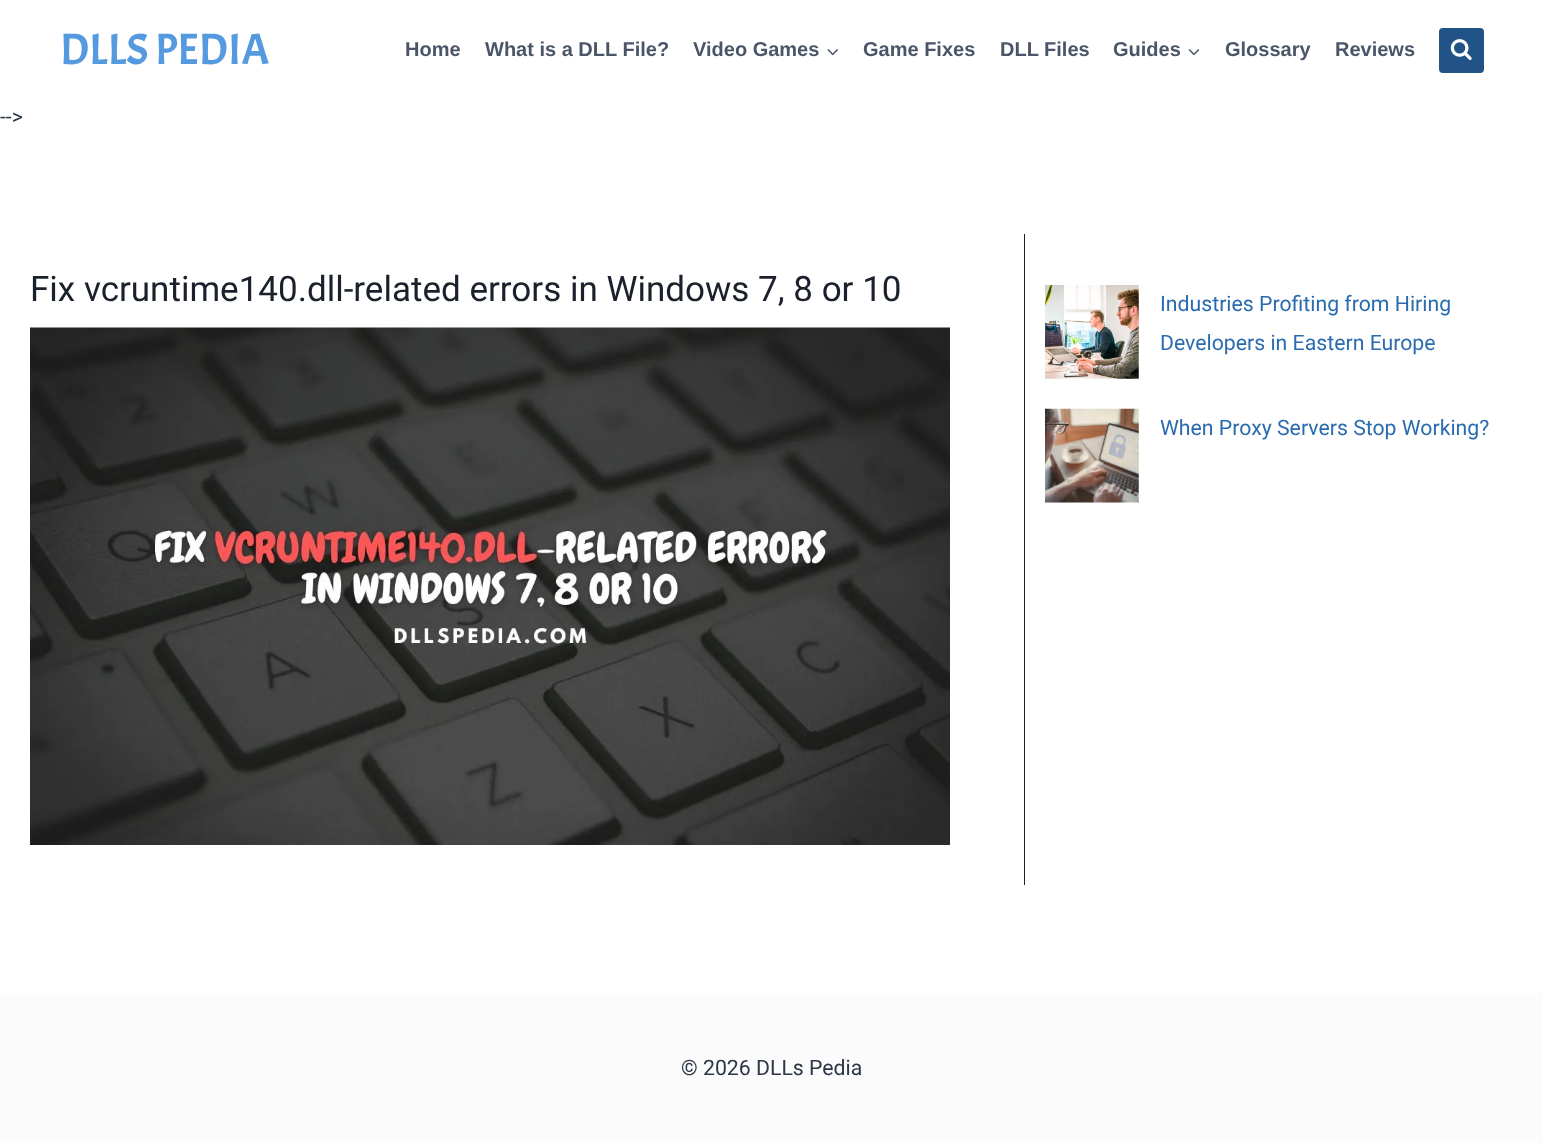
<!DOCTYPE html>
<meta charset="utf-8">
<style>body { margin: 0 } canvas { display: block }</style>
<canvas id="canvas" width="1543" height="1143"></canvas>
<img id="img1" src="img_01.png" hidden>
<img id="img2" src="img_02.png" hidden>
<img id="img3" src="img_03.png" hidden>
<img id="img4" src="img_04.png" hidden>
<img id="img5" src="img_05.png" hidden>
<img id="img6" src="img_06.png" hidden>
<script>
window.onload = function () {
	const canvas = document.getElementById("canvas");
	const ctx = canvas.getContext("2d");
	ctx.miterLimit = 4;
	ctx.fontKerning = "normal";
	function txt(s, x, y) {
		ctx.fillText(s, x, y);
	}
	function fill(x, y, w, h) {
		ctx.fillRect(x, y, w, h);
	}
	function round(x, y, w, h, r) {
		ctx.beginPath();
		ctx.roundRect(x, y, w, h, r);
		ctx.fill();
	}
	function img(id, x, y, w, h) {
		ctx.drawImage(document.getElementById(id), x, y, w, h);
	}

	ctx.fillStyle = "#FFFFFF";
	fill(0, 0, 1543, 1143);
	img("img1", 827, 49, 11, 7);
	img("img2", 1188, 49, 12, 7);
	ctx.fillStyle = "#215387";
	round(1439, 28, 45, 45, 4);
	img("img3", 1450, 39, 22, 21);
	img("img4", 30, 327, 920, 518);
	ctx.fillStyle = "#1A202C";
	fill(1024, 234, 1, 651);
	img("img5", 1045, 285, 94, 94);
	img("img6", 1045, 408, 94, 95);
	ctx.fillStyle = "#FBFBFB";
	fill(0, 993, 1543, 150);
	ctx.font = "43.75px Acme";
	ctx.fillStyle = "#5599DF";
	txt("DLLS PEDIA", 60, 64);
	ctx.font = "bold 20px Liberation Sans";
	ctx.fillStyle = "#4A5568";
	txt("Home", 405, 56);
	txt("What is a DLL File?", 485, 56);
	txt("Video Games", 693, 56);
	txt("Game Fixes", 863, 56);
	txt("DLL Files", 1000, 56);
	txt("Guides", 1113, 56);
	txt("Glossary", 1225, 56);
	txt("Reviews", 1335, 56);
	ctx.font = "21.25px Roboto";
	ctx.fillStyle = "#2D3748";
	txt("-->", 0, 124);
	ctx.font = "35px Roboto";
	ctx.fillStyle = "#1A202C";
	txt("Fix vcruntime140.dll-related errors in Windows 7, 8 or 10", 30, 301);
	ctx.font = "21.25px Roboto";
	ctx.fillStyle = "#2B6CB0";
	txt("Industries Profiting from Hiring", 1160, 311);
	txt("Developers in Eastern Europe", 1160, 350);
	txt("When Proxy Servers Stop Working?", 1160, 435);
	ctx.fillStyle = "#2D3748";
	txt("© 2026 DLLs Pedia", 681, 1075);
};
</script>
